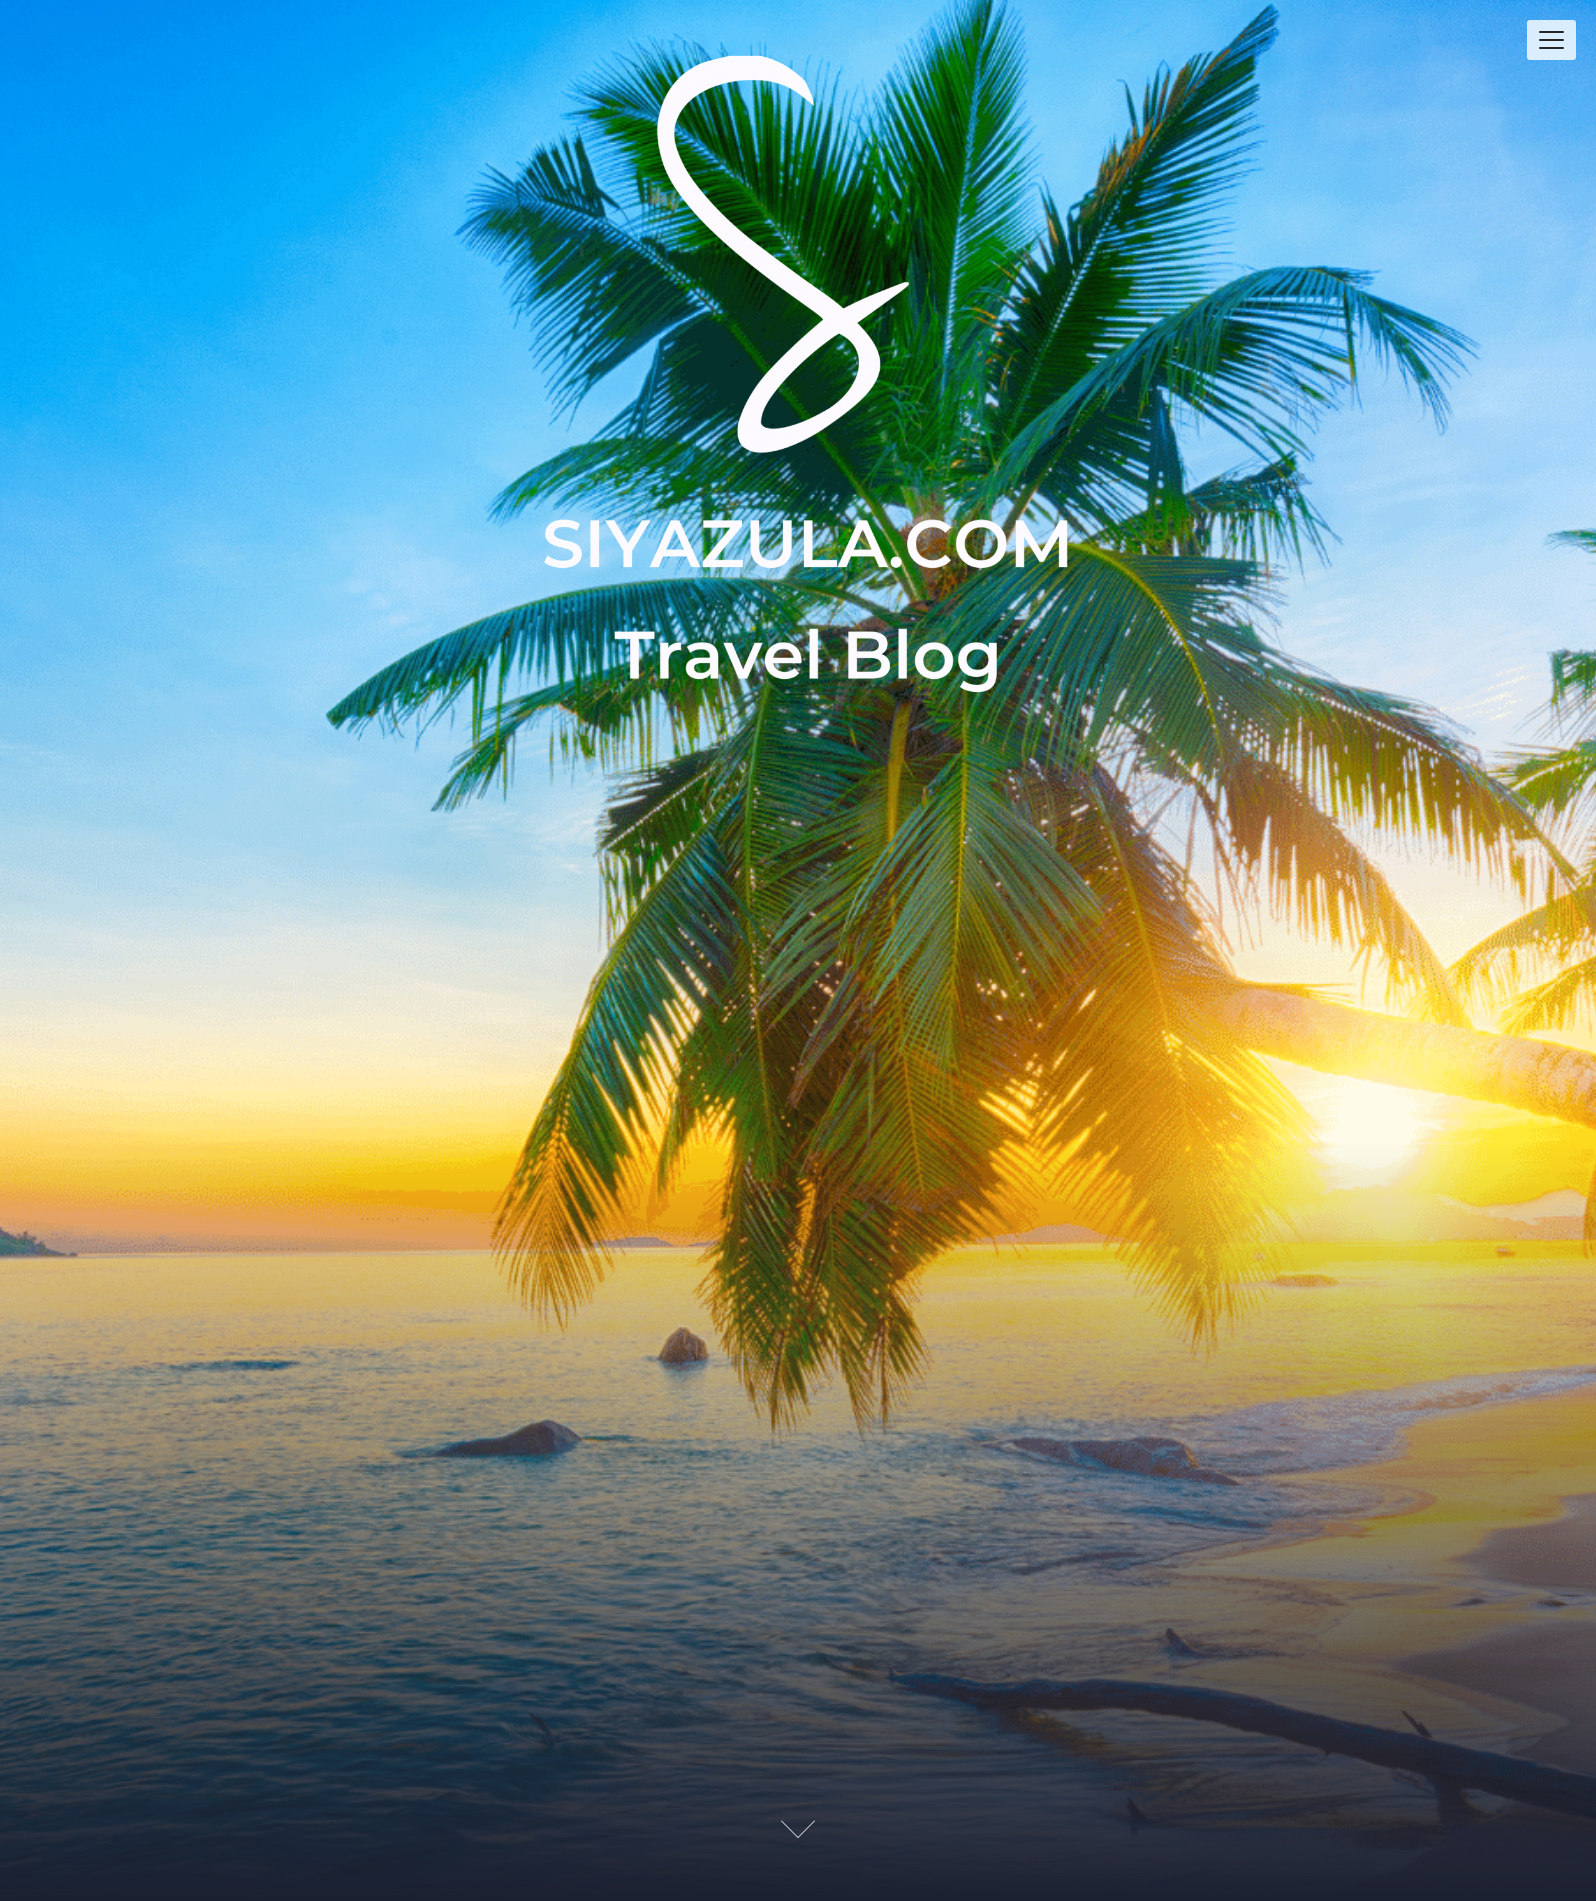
<!DOCTYPE html>
<meta charset="utf-8">
<style>body { margin: 0 } canvas { display: block }</style>
<canvas id="canvas" width="1596" height="1901"></canvas>
<img id="img1" src="img_01.png" hidden>
<img id="img2" src="img_02.png" hidden>
<script>
window.onload = function () {
	const canvas = document.getElementById("canvas");
	const ctx = canvas.getContext("2d");
	ctx.miterLimit = 4;
	ctx.fontKerning = "normal";
	function fill(x, y, w, h) {
		ctx.fillRect(x, y, w, h);
	}
	function round(x, y, w, h, r) {
		ctx.beginPath();
		ctx.roundRect(x, y, w, h, r);
		ctx.fill();
	}
	function img(id, x, y, w, h) {
		ctx.drawImage(document.getElementById(id), x, y, w, h);
	}

	ctx.fillStyle = "#FFFFFF";
	fill(0, 0, 1596, 1901);
	img("img1", 0, 0, 1596, 1901);
	ctx.fillStyle = "rgba(255, 255, 255, 0.8)";
	round(1527, 20, 49, 40, 3);
	ctx.fillStyle = "#252525";
	round(1539, 39, 25, 2, 1);
	round(1539, 31, 25, 2, 1);
	round(1539, 47, 25, 2, 1);
	img("img2", 544, 55, 524, 638);
	ctx.fillStyle = "#FFFFFF";
	ctx.beginPath();
	ctx.moveTo(797.5, 1837.5);
	ctx.lineTo(814.5, 1820.5);
	ctx.lineTo(815, 1821);
	ctx.lineTo(798, 1838);
	ctx.closePath();
	ctx.fill();
	ctx.beginPath();
	ctx.moveTo(781, 1821);
	ctx.lineTo(781.5, 1820.5);
	ctx.lineTo(798.5, 1837.5);
	ctx.lineTo(798, 1838);
	ctx.closePath();
	ctx.fill();
};
</script>
